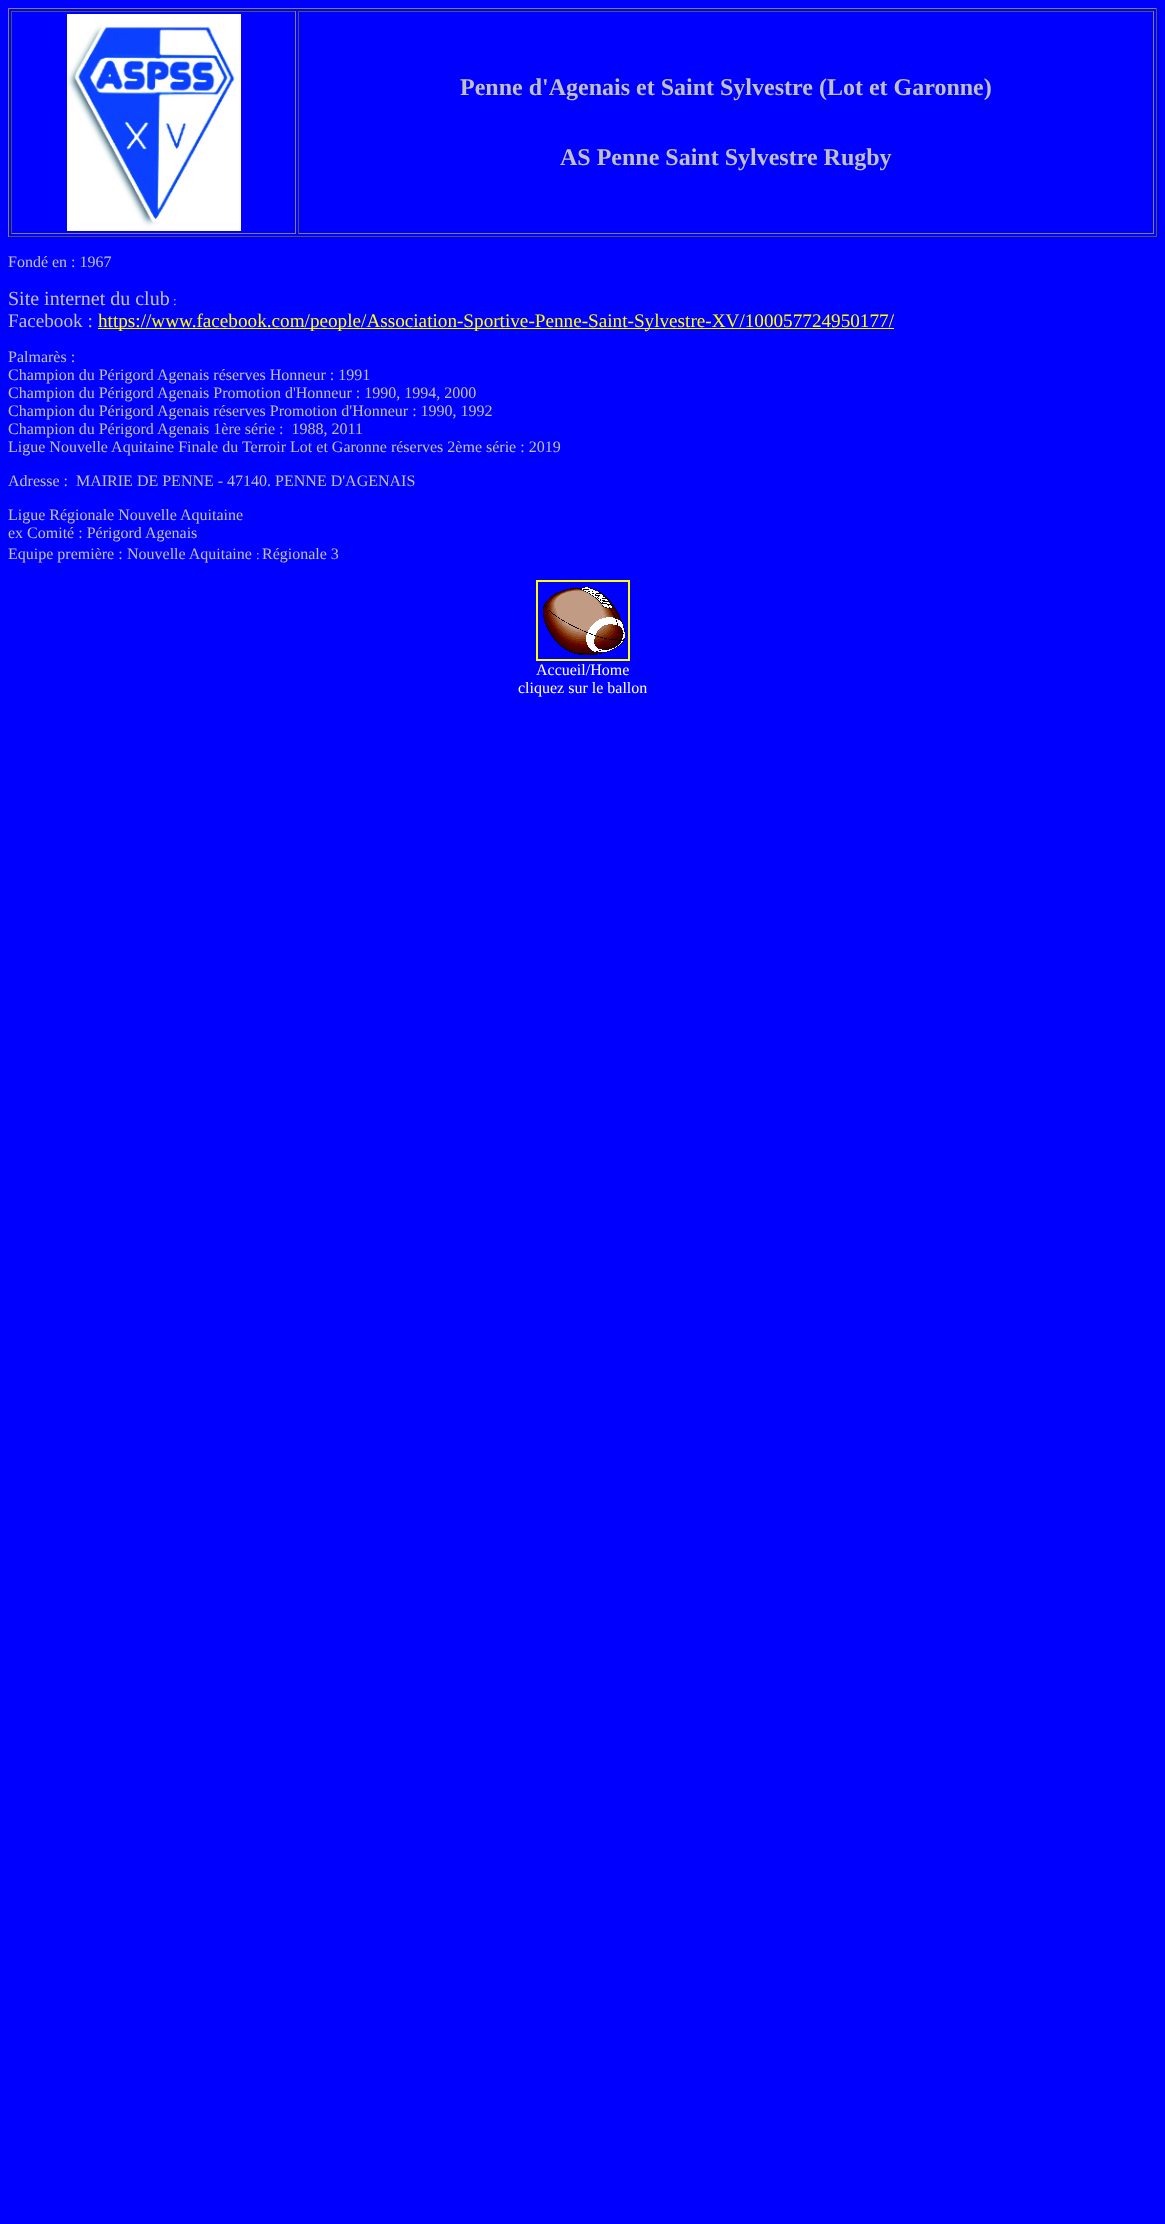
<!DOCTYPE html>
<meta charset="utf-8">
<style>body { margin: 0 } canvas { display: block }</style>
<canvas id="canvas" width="1165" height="2224"></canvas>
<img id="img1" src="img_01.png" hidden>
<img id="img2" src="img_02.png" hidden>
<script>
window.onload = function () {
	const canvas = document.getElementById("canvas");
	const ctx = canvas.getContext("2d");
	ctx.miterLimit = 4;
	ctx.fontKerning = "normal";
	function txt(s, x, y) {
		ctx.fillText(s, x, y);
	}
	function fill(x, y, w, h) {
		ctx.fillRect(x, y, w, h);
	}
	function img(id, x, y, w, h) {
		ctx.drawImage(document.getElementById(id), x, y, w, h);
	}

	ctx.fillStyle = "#0000FF";
	fill(0, 0, 1165, 2224);
	ctx.fillStyle = "#808080";
	fill(8, 8, 1149, 1);
	ctx.fillStyle = "#555555";
	fill(1156, 8, 1, 229);
	fill(8, 236, 1149, 1);
	ctx.fillStyle = "#808080";
	fill(8, 8, 1, 229);
	ctx.fillStyle = "#555555";
	fill(11, 11, 285, 1);
	ctx.fillStyle = "#808080";
	fill(295, 11, 1, 223);
	fill(11, 233, 285, 1);
	ctx.fillStyle = "#555555";
	fill(11, 11, 1, 223);
	img("img1", 67, 14, 174, 217);
	fill(298, 11, 856, 1);
	ctx.fillStyle = "#808080";
	fill(1153, 11, 1, 223);
	fill(298, 233, 856, 1);
	ctx.fillStyle = "#555555";
	fill(298, 11, 1, 223);
	ctx.fillStyle = "#FFFF00";
	fill(98, 328, 796, 1);
	ctx.strokeStyle = "#FFFF00";
	ctx.lineWidth = 2;
	ctx.strokeRect(537, 581, 92, 79);
	img("img2", 543, 587, 82, 68);
	ctx.font = "bold 24px Liberation Serif";
	ctx.fillStyle = "#C0C0C0";
	txt("Penne d'Agenais et Saint Sylvestre (Lot et Garonne)", 460, 95);
	txt("AS Penne Saint Sylvestre Rugby", 560, 165);
	ctx.font = "16px Liberation Serif";
	txt("Fondé en : 1967", 8, 267);
	ctx.font = "20px Liberation Serif";
	txt("Site internet du club", 8, 305);
	ctx.font = "13px Liberation Serif";
	txt(":", 173, 305);
	ctx.font = "19.2px Liberation Serif";
	txt("Facebook :", 8, 327);
	ctx.fillStyle = "#FFFF00";
	txt("https://www.facebook.com/people/Association-Sportive-Penne-Saint-Sylvestre-XV/100057724950177/", 98, 327);
	ctx.font = "16px Liberation Serif";
	ctx.fillStyle = "#C0C0C0";
	txt("Palmarès :", 8, 362);
	txt("Champion du Périgord Agenais réserves Honneur : 1991", 8, 380);
	txt("Champion du Périgord Agenais Promotion d'Honneur : 1990, 1994, 2000", 8, 398);
	txt("Champion du Périgord Agenais réserves Promotion d'Honneur : 1990, 1992", 8, 416);
	txt("Champion du Périgord Agenais 1ère série :  1988, 2011", 8, 434);
	txt("Ligue Nouvelle Aquitaine Finale du Terroir Lot et Garonne réserves 2ème série : 2019", 8, 452);
	txt("Adresse :", 8, 486);
	txt("MAIRIE DE PENNE - 47140. PENNE D'AGENAIS", 76, 486);
	txt("Ligue Régionale Nouvelle Aquitaine", 8, 520);
	txt("ex Comité : Périgord Agenais", 8, 538);
	txt("Equipe première :", 8, 559);
	txt("Nouvelle Aquitaine", 127, 559);
	ctx.font = "13px Liberation Serif";
	txt(":", 256, 559);
	ctx.font = "16px Liberation Serif";
	txt("Régionale 3", 262, 559);
	ctx.fillStyle = "#FFFFFF";
	txt("Accueil/Home", 536, 675);
	txt("cliquez sur le ballon", 518, 693);
};
</script>
